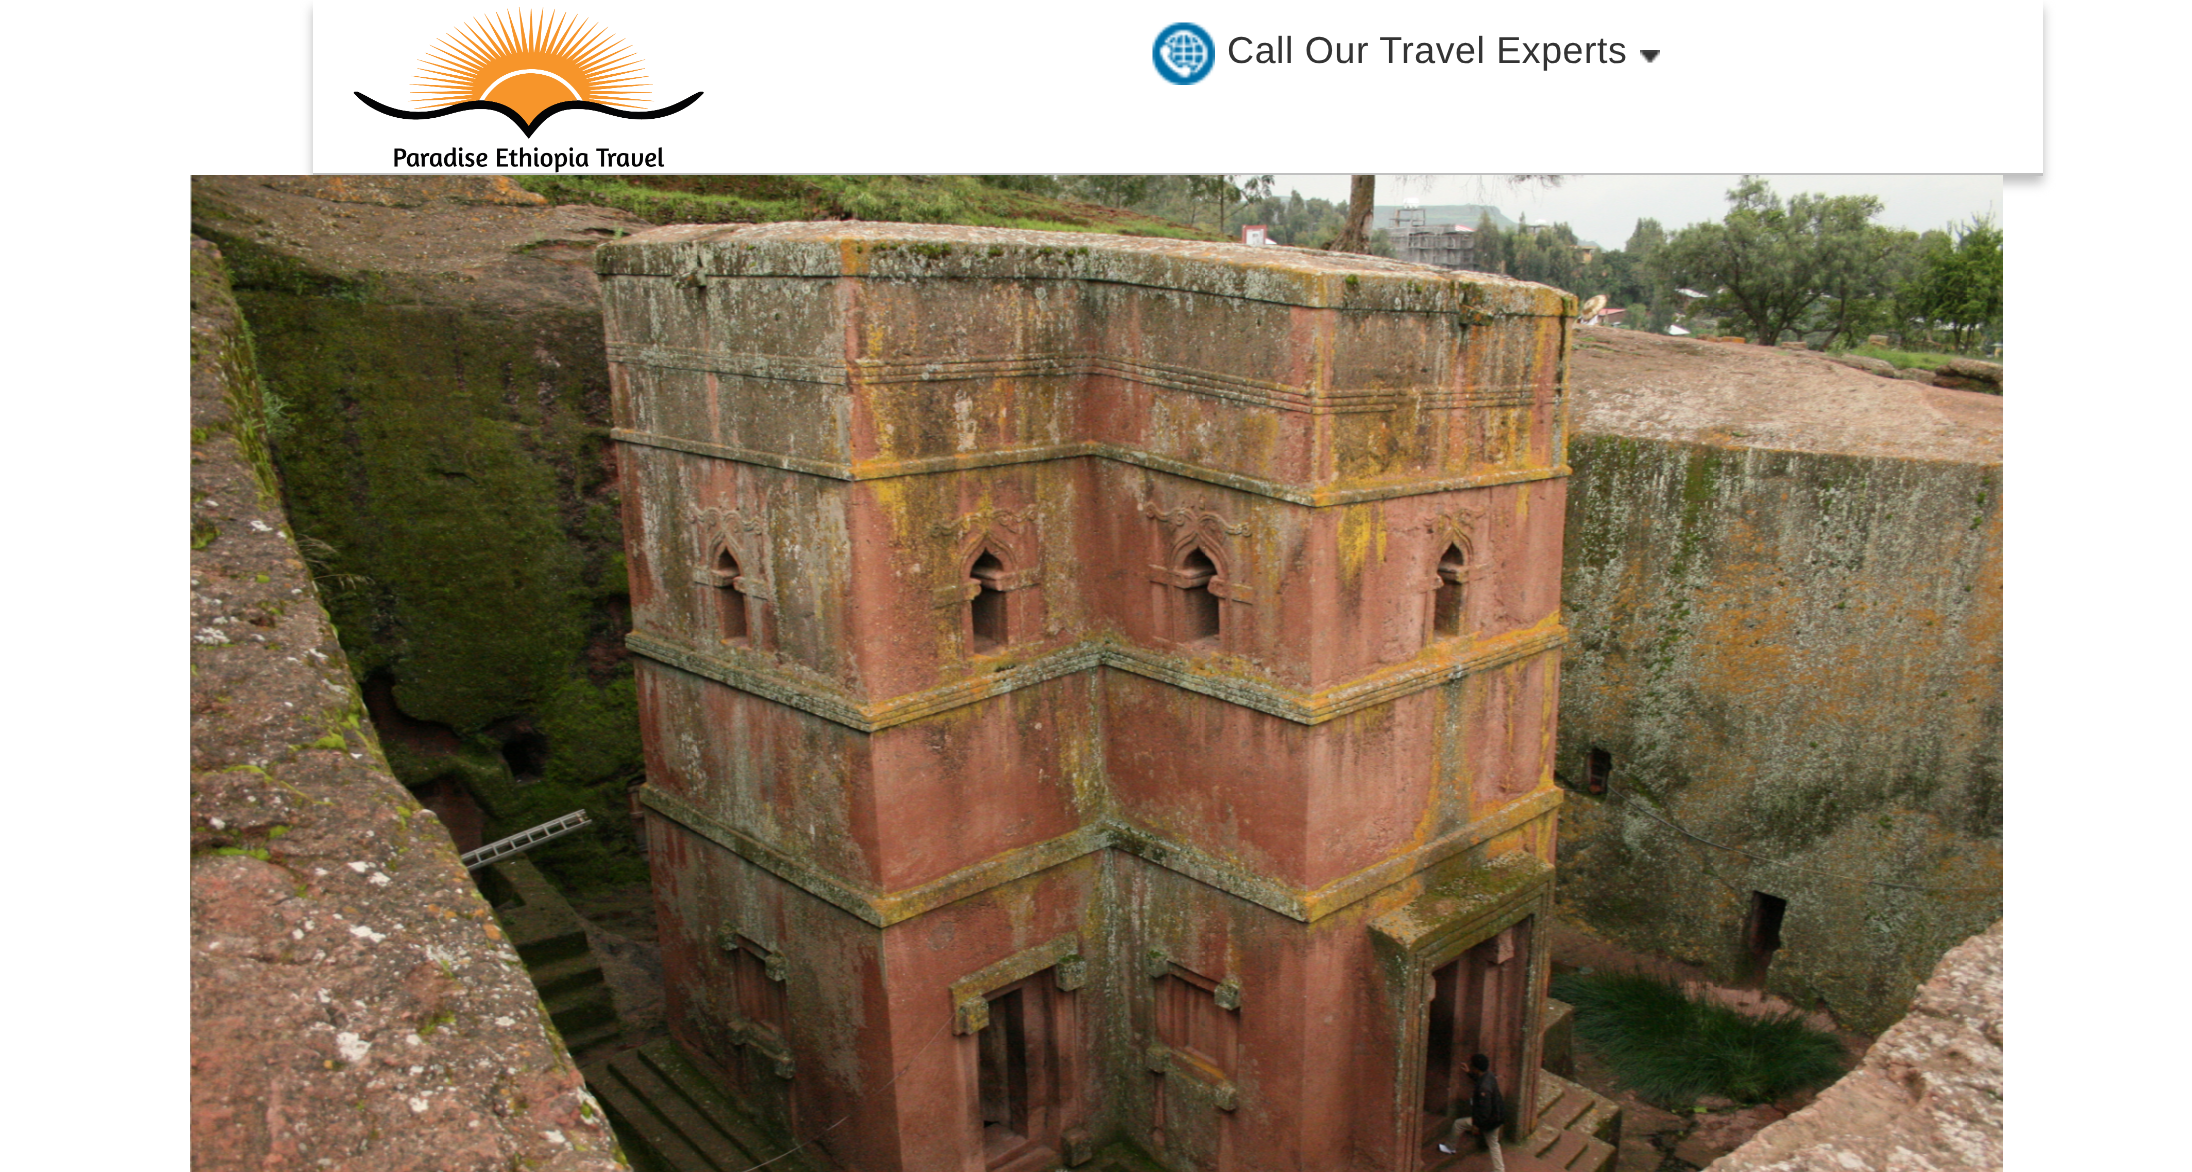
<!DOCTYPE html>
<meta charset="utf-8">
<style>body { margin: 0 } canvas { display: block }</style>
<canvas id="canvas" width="2192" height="1172"></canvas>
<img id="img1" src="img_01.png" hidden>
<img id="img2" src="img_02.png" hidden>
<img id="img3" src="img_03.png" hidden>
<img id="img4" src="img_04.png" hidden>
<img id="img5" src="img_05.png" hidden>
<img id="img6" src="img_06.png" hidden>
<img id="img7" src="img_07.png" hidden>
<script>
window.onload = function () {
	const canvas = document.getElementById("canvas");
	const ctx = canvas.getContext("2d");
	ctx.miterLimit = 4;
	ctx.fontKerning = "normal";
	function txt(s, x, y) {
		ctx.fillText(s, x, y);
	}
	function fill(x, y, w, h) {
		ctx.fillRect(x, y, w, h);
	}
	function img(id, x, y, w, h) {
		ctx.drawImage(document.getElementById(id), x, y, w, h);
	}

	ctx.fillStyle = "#FFFFFF";
	fill(0, 0, 2192, 1172);
	ctx.save();
	ctx.beginPath();
	ctx.moveTo(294, 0);
	ctx.lineTo(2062, 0);
	ctx.lineTo(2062, 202);
	ctx.lineTo(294, 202);
	ctx.closePath();
	ctx.moveTo(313, 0);
	ctx.lineTo(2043, 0);
	ctx.lineTo(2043, 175);
	ctx.lineTo(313, 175);
	ctx.closePath();
	ctx.clip("evenodd");
	ctx.fillStyle = "#BBBBBB";
	ctx.filter = "blur(6px)";
	ctx.beginPath();
	ctx.rect(313, 8, 1730, 175);
	ctx.fill();
	ctx.filter = "none";
	ctx.restore();
	ctx.fillStyle = "#C1C1C1";
	fill(313, 173, 1730, 3);
	img("img1", 353, 6, 351, 167);
	img("img2", 1152, 22, 63, 63);
	img("img3", 1640, 50, 20, 13);
	img("img4", 190, 175, 1, 997);
	img("img5", 190, 175, 1, 997);
	img("img6", 190, 175, 1, 997);
	img("img7", 190, 175, 1813, 997);
	ctx.letterSpacing = "0.55px";
	ctx.font = "37.5px Liberation Sans";
	ctx.fillStyle = "#333333";
	txt("Call Our Travel Experts", 1227, 63);
};
</script>
